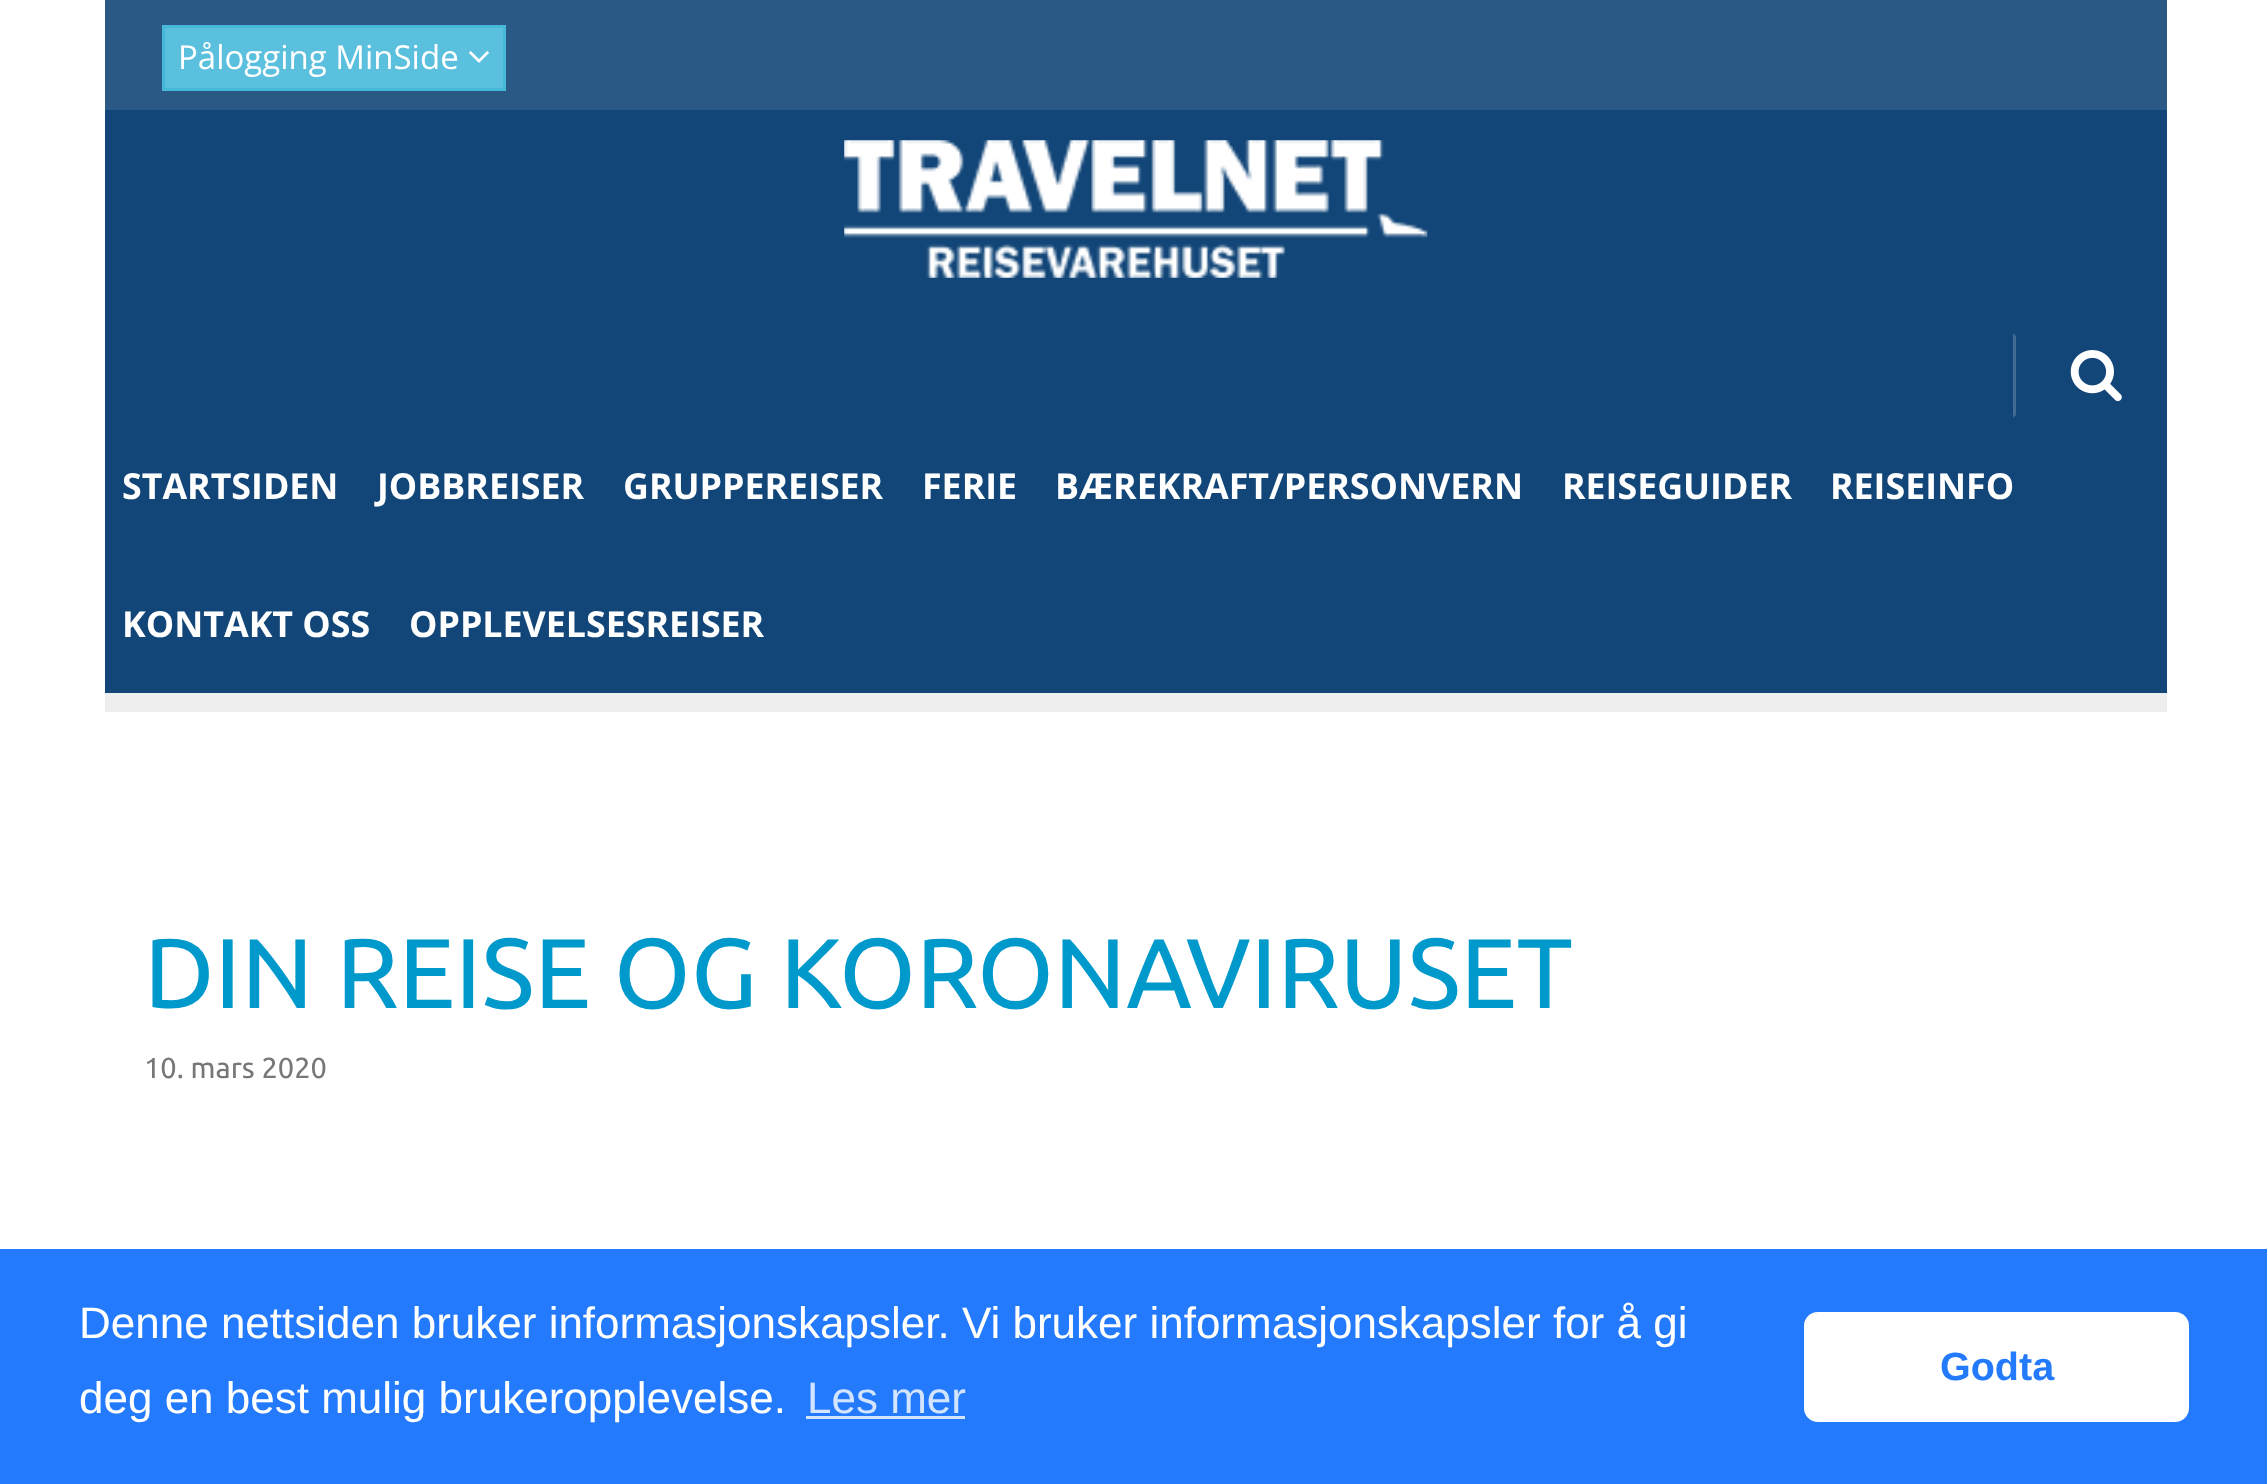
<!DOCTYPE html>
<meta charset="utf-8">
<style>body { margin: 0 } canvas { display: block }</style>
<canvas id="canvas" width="2267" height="1484"></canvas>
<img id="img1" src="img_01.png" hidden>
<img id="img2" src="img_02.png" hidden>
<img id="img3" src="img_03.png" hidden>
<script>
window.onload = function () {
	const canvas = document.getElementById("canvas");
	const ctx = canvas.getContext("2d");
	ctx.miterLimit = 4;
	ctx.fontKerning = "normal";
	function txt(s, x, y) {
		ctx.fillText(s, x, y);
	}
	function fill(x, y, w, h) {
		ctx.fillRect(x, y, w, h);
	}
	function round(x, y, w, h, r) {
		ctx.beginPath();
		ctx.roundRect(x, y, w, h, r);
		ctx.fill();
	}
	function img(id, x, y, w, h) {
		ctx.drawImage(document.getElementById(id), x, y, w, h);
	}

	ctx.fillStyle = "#FFFFFF";
	fill(0, 0, 2267, 1484);
	ctx.fillStyle = "#124678";
	fill(105, 110, 2062, 583);
	ctx.fillStyle = "#2A5986";
	fill(105, 0, 2062, 110);
	ctx.fillStyle = "#5BC0DE";
	ctx.beginPath();
	ctx.rect(163.5, 26.5, 341, 63);
	ctx.fill();
	ctx.strokeStyle = "#46B8DA";
	ctx.lineWidth = 3;
	ctx.stroke();
	img("img1", 469, 51, 20, 12);
	img("img2", 844, 140, 584, 138);
	ctx.fillStyle = "#416B93";
	ctx.beginPath();
	ctx.moveTo(2013, 418);
	ctx.lineTo(2013, 333);
	ctx.lineTo(2016, 336);
	ctx.lineTo(2016, 415);
	ctx.closePath();
	ctx.fill();
	img("img3", 2070, 350, 52, 52);
	ctx.fillStyle = "#EEEEEE";
	fill(105, 693, 2062, 19);
	ctx.fillStyle = "#237AFC";
	fill(0, 1249, 2267, 235);
	ctx.fillStyle = "#D3E4FE";
	fill(806, 1416, 159, 3);
	ctx.fillStyle = "#FFFFFF";
	round(1804, 1312, 385, 110, 14);
	ctx.font = "33px Open Sans";
	txt("Pålogging MinSide", 178, 69);
	ctx.font = "bold 35.75px Open Sans";
	txt("STARTSIDEN", 122, 499);
	txt("JOBBREISER", 377, 499);
	txt("GRUPPEREISER", 623, 499);
	txt("FERIE", 922, 499);
	txt("BÆREKRAFT/PERSONVERN", 1055, 499);
	txt("REISEGUIDER", 1562, 499);
	txt("REISEINFO", 1830, 499);
	txt("KONTAKT OSS", 122, 637);
	txt("OPPLEVELSESREISER", 409, 637);
	ctx.font = "99px Ubuntu";
	ctx.fillStyle = "#0099CC";
	txt("DIN REISE OG KORONAVIRUSET", 144, 1008);
	ctx.font = "29px Ubuntu";
	ctx.fillStyle = "#777777";
	txt("10. mars 2020", 144, 1078);
	ctx.font = "44px Liberation Sans";
	ctx.fillStyle = "#FFFFFF";
	txt("Denne nettsiden bruker informasjonskapsler. Vi bruker informasjonskapsler for å gi", 79, 1338);
	txt("deg en best mulig brukeropplevelse.", 79, 1413);
	ctx.fillStyle = "#D3E4FE";
	txt("Les mer", 807, 1413);
	ctx.font = "bold 39.5px Liberation Sans";
	ctx.fillStyle = "#237AFC";
	txt("Godta", 1940, 1380);
};
</script>
